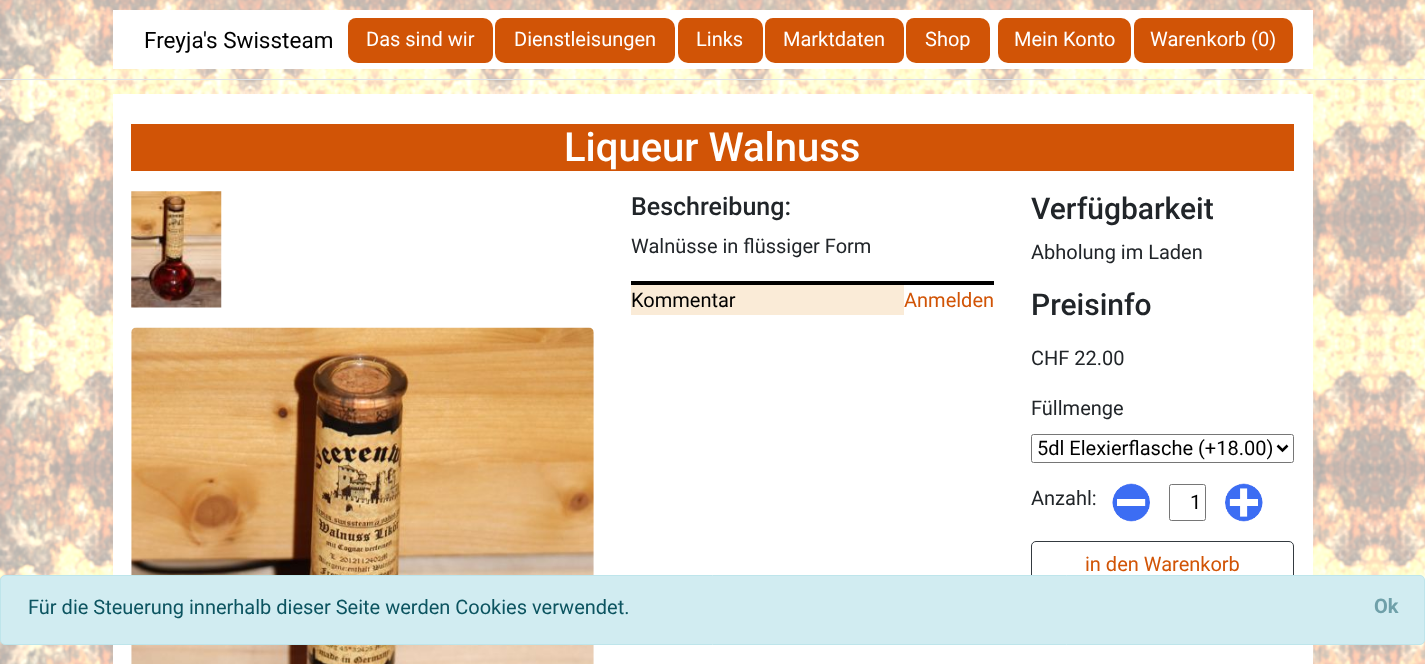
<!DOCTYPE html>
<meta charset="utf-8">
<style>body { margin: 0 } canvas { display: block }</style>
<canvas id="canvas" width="1425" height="664"></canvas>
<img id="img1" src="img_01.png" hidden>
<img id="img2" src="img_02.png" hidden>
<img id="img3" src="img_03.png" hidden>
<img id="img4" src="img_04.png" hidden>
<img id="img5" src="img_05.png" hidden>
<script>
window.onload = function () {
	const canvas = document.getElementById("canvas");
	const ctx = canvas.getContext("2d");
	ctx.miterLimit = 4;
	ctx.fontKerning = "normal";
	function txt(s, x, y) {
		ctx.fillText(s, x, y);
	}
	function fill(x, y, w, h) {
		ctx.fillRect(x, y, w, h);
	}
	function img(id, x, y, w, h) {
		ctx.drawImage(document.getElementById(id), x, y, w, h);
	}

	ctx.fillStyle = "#FFFFFF";
	fill(0, 0, 1425, 664);
	img("img1", 0, 0, 1425, 664);
	ctx.fillStyle = "#DEE2E6";
	fill(0, 79, 1425, 1);
	ctx.fillStyle = "#FFFFFF";
	fill(113, 10, 1200, 59);
	ctx.fillStyle = "#D15406";
	ctx.beginPath();
	ctx.roundRect(348, 18, 145, 45, [8, 10, 8, 10]);
	ctx.fill();
	ctx.beginPath();
	ctx.roundRect(495, 18, 180, 45, [8, 10, 8, 10]);
	ctx.fill();
	ctx.beginPath();
	ctx.roundRect(678, 18, 85, 45, [8, 10, 8, 10]);
	ctx.fill();
	ctx.beginPath();
	ctx.roundRect(765, 18, 139, 45, [8, 10, 8, 10]);
	ctx.fill();
	ctx.beginPath();
	ctx.roundRect(906, 18, 84, 45, [8, 10, 8, 10]);
	ctx.fill();
	ctx.beginPath();
	ctx.roundRect(998, 18, 133, 45, [8, 10, 8, 10]);
	ctx.fill();
	ctx.beginPath();
	ctx.roundRect(1134, 18, 159, 45, [8, 10, 8, 10]);
	ctx.fill();
	ctx.fillStyle = "#FFFFFF";
	fill(113, 94, 1200, 570);
	ctx.fillStyle = "#D15406";
	fill(131, 124, 1163, 47);
	img("img2", 131, 191, 91, 117);
	img("img3", 131, 327, 463, 337);
	ctx.fillStyle = "#FAEBD7";
	fill(631, 285, 273, 30);
	ctx.fillStyle = "#000000";
	fill(631, 281, 363, 4);
	ctx.beginPath();
	ctx.roundRect(1031.5, 434.5, 262, 28, 2);
	ctx.strokeStyle = "#767676";
	ctx.stroke();
	ctx.beginPath();
	ctx.moveTo(1277.5, 445.5);
	ctx.lineTo(1282.5, 450.5);
	ctx.lineTo(1287.5, 445.5);
	ctx.strokeStyle = "#000000";
	ctx.lineWidth = 2.5;
	ctx.stroke();
	img("img4", 1112, 483, 38, 39);
	ctx.beginPath();
	ctx.roundRect(1169.5, 484.5, 36, 36, 2);
	ctx.strokeStyle = "#767676";
	ctx.lineWidth = 1;
	ctx.stroke();
	img("img5", 1225, 483, 38, 39);
	ctx.beginPath();
	ctx.roundRect(1031.5, 541.5, 262, 47, 4.5);
	ctx.strokeStyle = "#343A40";
	ctx.stroke();
	ctx.fillStyle = "#D1ECF1";
	ctx.beginPath();
	ctx.roundRect(0.5, 575.5, 1424, 69, 4.5);
	ctx.fill();
	ctx.strokeStyle = "#BEE5EB";
	ctx.stroke();
	ctx.font = "22.5px Roboto";
	ctx.fillStyle = "#000000";
	txt("Freyja's Swissteam", 144, 48);
	ctx.font = "20px Roboto";
	ctx.fillStyle = "#FFFFFF";
	txt("Das sind wir", 366, 46);
	txt("Dienstleisungen", 514, 46);
	txt("Links", 696, 46);
	txt("Marktdaten", 783, 46);
	txt("Shop", 925, 46);
	txt("Mein Konto", 1014, 46);
	txt("Warenkorb (0)", 1150, 46);
	ctx.font = "500 40px Roboto";
	txt("Liqueur Walnuss", 564, 161);
	ctx.font = "500 25px Roboto";
	ctx.fillStyle = "#212529";
	txt("Beschreibung:", 631, 215);
	ctx.font = "20px Roboto";
	txt("Walnüsse in flüssiger Form", 631, 253);
	ctx.fillStyle = "#000000";
	txt("Kommentar", 631, 307);
	ctx.fillStyle = "#D15406";
	txt("Anmelden", 904, 307);
	ctx.font = "500 30px Roboto";
	ctx.fillStyle = "#212529";
	txt("Verfügbarkeit", 1031, 219);
	ctx.font = "20px Roboto";
	txt("Abholung im Laden", 1031, 259);
	ctx.font = "500 30px Roboto";
	txt("Preisinfo", 1031, 315);
	ctx.font = "20px Roboto";
	txt("CHF 22.00", 1031, 365);
	txt("Füllmenge", 1031, 415);
	ctx.fillStyle = "#000000";
	txt("5dl Elexierflasche (+18.00)", 1037, 455);
	ctx.fillStyle = "#212529";
	txt("Anzahl:", 1031, 505);
	ctx.fillStyle = "#000000";
	txt("1", 1190, 509);
	ctx.fillStyle = "#D15406";
	txt("in den Warenkorb", 1085, 571);
	ctx.fillStyle = "#0C5460";
	txt("Für die Steuerung innerhalb dieser Seite werden Cookies verwendet.", 28, 614);
	ctx.font = "bold 20px Roboto";
	ctx.fillStyle = "#6FA0A9";
	txt("Ok", 1374, 613);
};
</script>
